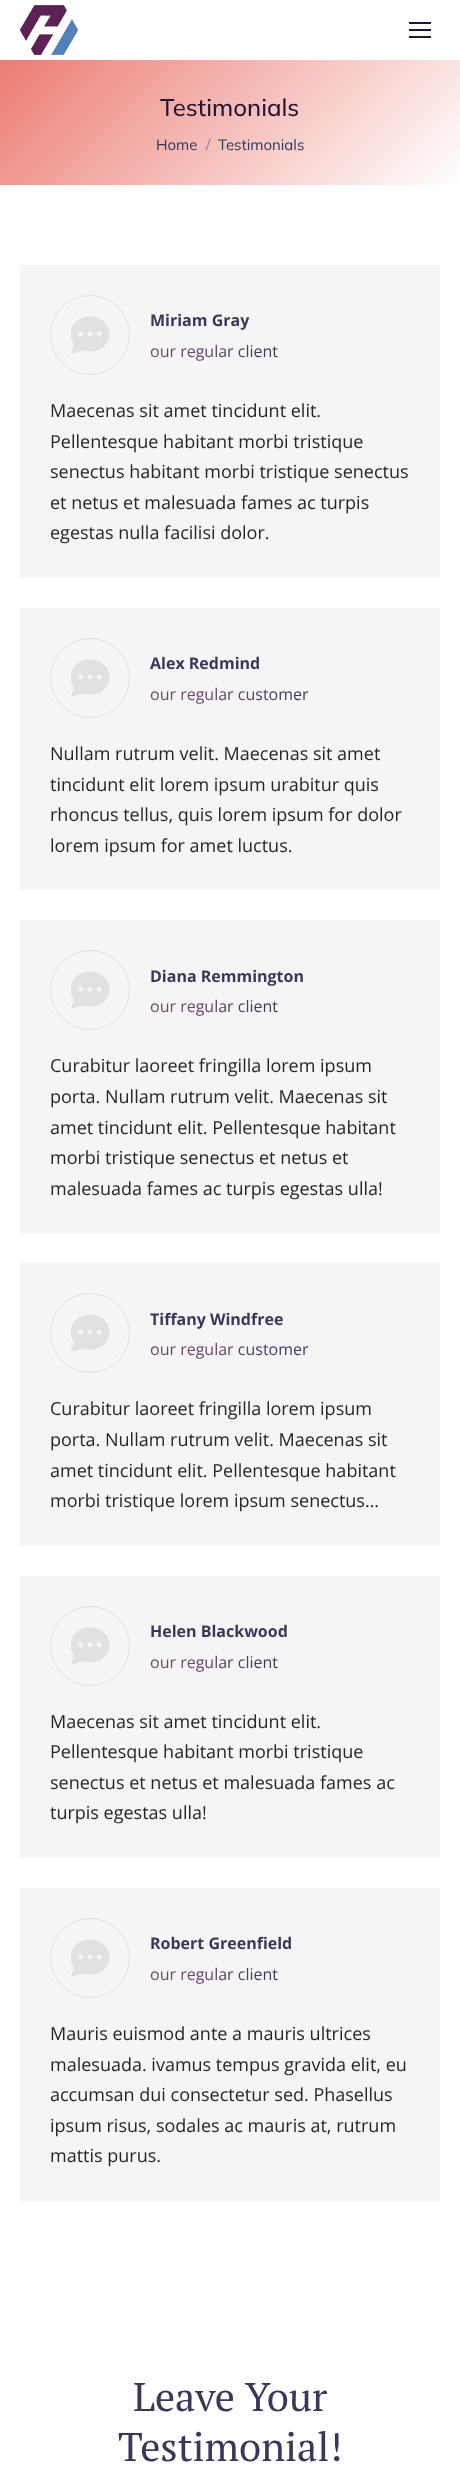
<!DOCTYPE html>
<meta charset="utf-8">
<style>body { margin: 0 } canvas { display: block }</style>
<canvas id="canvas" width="460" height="2465"></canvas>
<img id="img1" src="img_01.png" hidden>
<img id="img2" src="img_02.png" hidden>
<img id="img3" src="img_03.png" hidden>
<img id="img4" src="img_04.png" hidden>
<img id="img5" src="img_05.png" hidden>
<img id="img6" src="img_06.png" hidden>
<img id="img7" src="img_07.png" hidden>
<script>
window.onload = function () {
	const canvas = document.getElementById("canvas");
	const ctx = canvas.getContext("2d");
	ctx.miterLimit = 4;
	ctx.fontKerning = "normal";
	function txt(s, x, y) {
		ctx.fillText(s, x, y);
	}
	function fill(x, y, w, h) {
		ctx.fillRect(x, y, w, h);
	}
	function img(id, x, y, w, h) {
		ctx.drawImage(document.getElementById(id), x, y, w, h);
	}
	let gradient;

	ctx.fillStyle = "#FFFFFF";
	fill(0, 0, 460, 2465);
	img("img1", 20, 5, 58, 50);
	ctx.fillStyle = "#221533";
	fill(409, 22, 22, 2);
	fill(409, 29, 22, 2);
	fill(409, 36, 22, 2);
	gradient = ctx.createLinearGradient(84, -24, 376, 269);
	gradient.addColorStop(0, "#EC7C73");
	gradient.addColorStop(1, "#FFFFFF");
	ctx.fillStyle = gradient;
	fill(0, 60, 460, 125);
	ctx.fillStyle = "#F5F5F5";
	fill(20, 265, 420, 313);
	ctx.beginPath();
	ctx.arc(90, 335, 39.5, 0, Math.PI * 2);
	ctx.strokeStyle = "#E1E1E1";
	ctx.stroke();
	img("img2", 71, 316, 39, 38);
	fill(20, 608, 420, 282);
	ctx.beginPath();
	ctx.arc(90, 678, 39.5, 0, Math.PI * 2);
	ctx.stroke();
	img("img3", 71, 659, 39, 38);
	fill(20, 920, 420, 313);
	ctx.beginPath();
	ctx.arc(90, 990, 39.5, 0, Math.PI * 2);
	ctx.stroke();
	img("img4", 71, 971, 39, 38);
	fill(20, 1263, 420, 283);
	ctx.beginPath();
	ctx.arc(90, 1333, 39.5, 0, Math.PI * 2);
	ctx.stroke();
	img("img5", 71, 1314, 39, 38);
	fill(20, 1576, 420, 282);
	ctx.beginPath();
	ctx.arc(90, 1646, 39.5, 0, Math.PI * 2);
	ctx.stroke();
	img("img6", 71, 1627, 39, 38);
	fill(20, 1888, 420, 313);
	ctx.beginPath();
	ctx.arc(90, 1958, 39.5, 0, Math.PI * 2);
	ctx.stroke();
	img("img7", 71, 1939, 39, 38);
	ctx.font = "500 24px Mulish";
	ctx.fillStyle = "#221533";
	txt("Testimonials", 160, 116);
	ctx.font = "15px Mulish";
	ctx.fillStyle = "#2C395F";
	txt("Home", 156, 150);
	ctx.fillStyle = "#917B8C";
	txt("/", 206, 150);
	ctx.fillStyle = "#2C395F";
	txt("Testimonials", 218, 150);
	ctx.font = "bold 16px Open Sans";
	ctx.fillStyle = "#3D365A";
	txt("Miriam Gray", 150, 326);
	ctx.font = "16px Open Sans";
	gradient = ctx.createLinearGradient(150, 352, 278, 352);
	gradient.addColorStop(0.3, "#70446D");
	gradient.addColorStop(1, "#3D365A");
	ctx.fillStyle = gradient;
	txt("our regular client", 150, 357);
	ctx.font = "18px Open Sans";
	ctx.fillStyle = "#26252A";
	txt("Maecenas sit amet tincidunt elit.", 50, 417);
	txt("Pellentesque habitant morbi tristique", 50, 448);
	txt("senectus habitant morbi tristique senectus", 50, 478);
	txt("et netus et malesuada fames ac turpis", 50, 509);
	txt("egestas nulla facilisi dolor.", 50, 539);
	ctx.font = "bold 16px Open Sans";
	ctx.fillStyle = "#3D365A";
	txt("Alex Redmind", 150, 669);
	ctx.font = "16px Open Sans";
	gradient = ctx.createLinearGradient(150, 695, 309, 695);
	gradient.addColorStop(0.3, "#70446D");
	gradient.addColorStop(1, "#3D365A");
	ctx.fillStyle = gradient;
	txt("our regular customer", 150, 700);
	ctx.font = "18px Open Sans";
	ctx.fillStyle = "#26252A";
	txt("Nullam rutrum velit. Maecenas sit amet", 50, 760);
	txt("tincidunt elit lorem ipsum urabitur quis", 50, 791);
	txt("rhoncus tellus, quis lorem ipsum for dolor", 50, 821);
	txt("lorem ipsum for amet luctus.", 50, 852);
	ctx.font = "bold 16px Open Sans";
	ctx.fillStyle = "#3D365A";
	txt("Diana Remmington", 150, 982);
	ctx.font = "16px Open Sans";
	gradient = ctx.createLinearGradient(150, 1007, 278, 1007);
	gradient.addColorStop(0.3, "#70446D");
	gradient.addColorStop(1, "#3D365A");
	ctx.fillStyle = gradient;
	txt("our regular client", 150, 1012);
	ctx.font = "18px Open Sans";
	ctx.fillStyle = "#26252A";
	txt("Curabitur laoreet fringilla lorem ipsum", 50, 1072);
	txt("porta. Nullam rutrum velit. Maecenas sit", 50, 1103);
	txt("amet tincidunt elit. Pellentesque habitant", 50, 1134);
	txt("morbi tristique senectus et netus et", 50, 1164);
	txt("malesuada fames ac turpis egestas ulla!", 50, 1195);
	ctx.font = "bold 16px Open Sans";
	ctx.fillStyle = "#3D365A";
	txt("Tiffany Windfree", 150, 1325);
	ctx.font = "16px Open Sans";
	gradient = ctx.createLinearGradient(150, 1350, 309, 1350);
	gradient.addColorStop(0.3, "#70446D");
	gradient.addColorStop(1, "#3D365A");
	ctx.fillStyle = gradient;
	txt("our regular customer", 150, 1355);
	ctx.font = "18px Open Sans";
	ctx.fillStyle = "#26252A";
	txt("Curabitur laoreet fringilla lorem ipsum", 50, 1415);
	txt("porta. Nullam rutrum velit. Maecenas sit", 50, 1446);
	txt("amet tincidunt elit. Pellentesque habitant", 50, 1477);
	txt("morbi tristique lorem ipsum senectus…", 50, 1507);
	ctx.font = "bold 16px Open Sans";
	ctx.fillStyle = "#3D365A";
	txt("Helen Blackwood", 150, 1637);
	ctx.font = "16px Open Sans";
	gradient = ctx.createLinearGradient(150, 1662, 278, 1662);
	gradient.addColorStop(0.3, "#70446D");
	gradient.addColorStop(1, "#3D365A");
	ctx.fillStyle = gradient;
	txt("our regular client", 150, 1668);
	ctx.font = "18px Open Sans";
	ctx.fillStyle = "#26252A";
	txt("Maecenas sit amet tincidunt elit.", 50, 1728);
	txt("Pellentesque habitant morbi tristique", 50, 1758);
	txt("senectus et netus et malesuada fames ac", 50, 1789);
	txt("turpis egestas ulla!", 50, 1819);
	ctx.font = "bold 16px Open Sans";
	ctx.fillStyle = "#3D365A";
	txt("Robert Greenfield", 150, 1949);
	ctx.font = "16px Open Sans";
	gradient = ctx.createLinearGradient(150, 1975, 278, 1975);
	gradient.addColorStop(0.3, "#70446D");
	gradient.addColorStop(1, "#3D365A");
	ctx.fillStyle = gradient;
	txt("our regular client", 150, 1980);
	ctx.font = "18px Open Sans";
	ctx.fillStyle = "#26252A";
	txt("Mauris euismod ante a mauris ultrices", 50, 2040);
	txt("malesuada. ivamus tempus gravida elit, eu", 50, 2071);
	txt("accumsan dui consectetur sed. Phasellus", 50, 2101);
	txt("ipsum risus, sodales ac mauris at, rutrum", 50, 2132);
	txt("mattis purus.", 50, 2162);
	ctx.font = "40px PT Serif";
	ctx.fillStyle = "#3D365A";
	txt("Leave Your", 133, 2411);
	txt("Testimonial!", 118, 2461);
};
</script>
